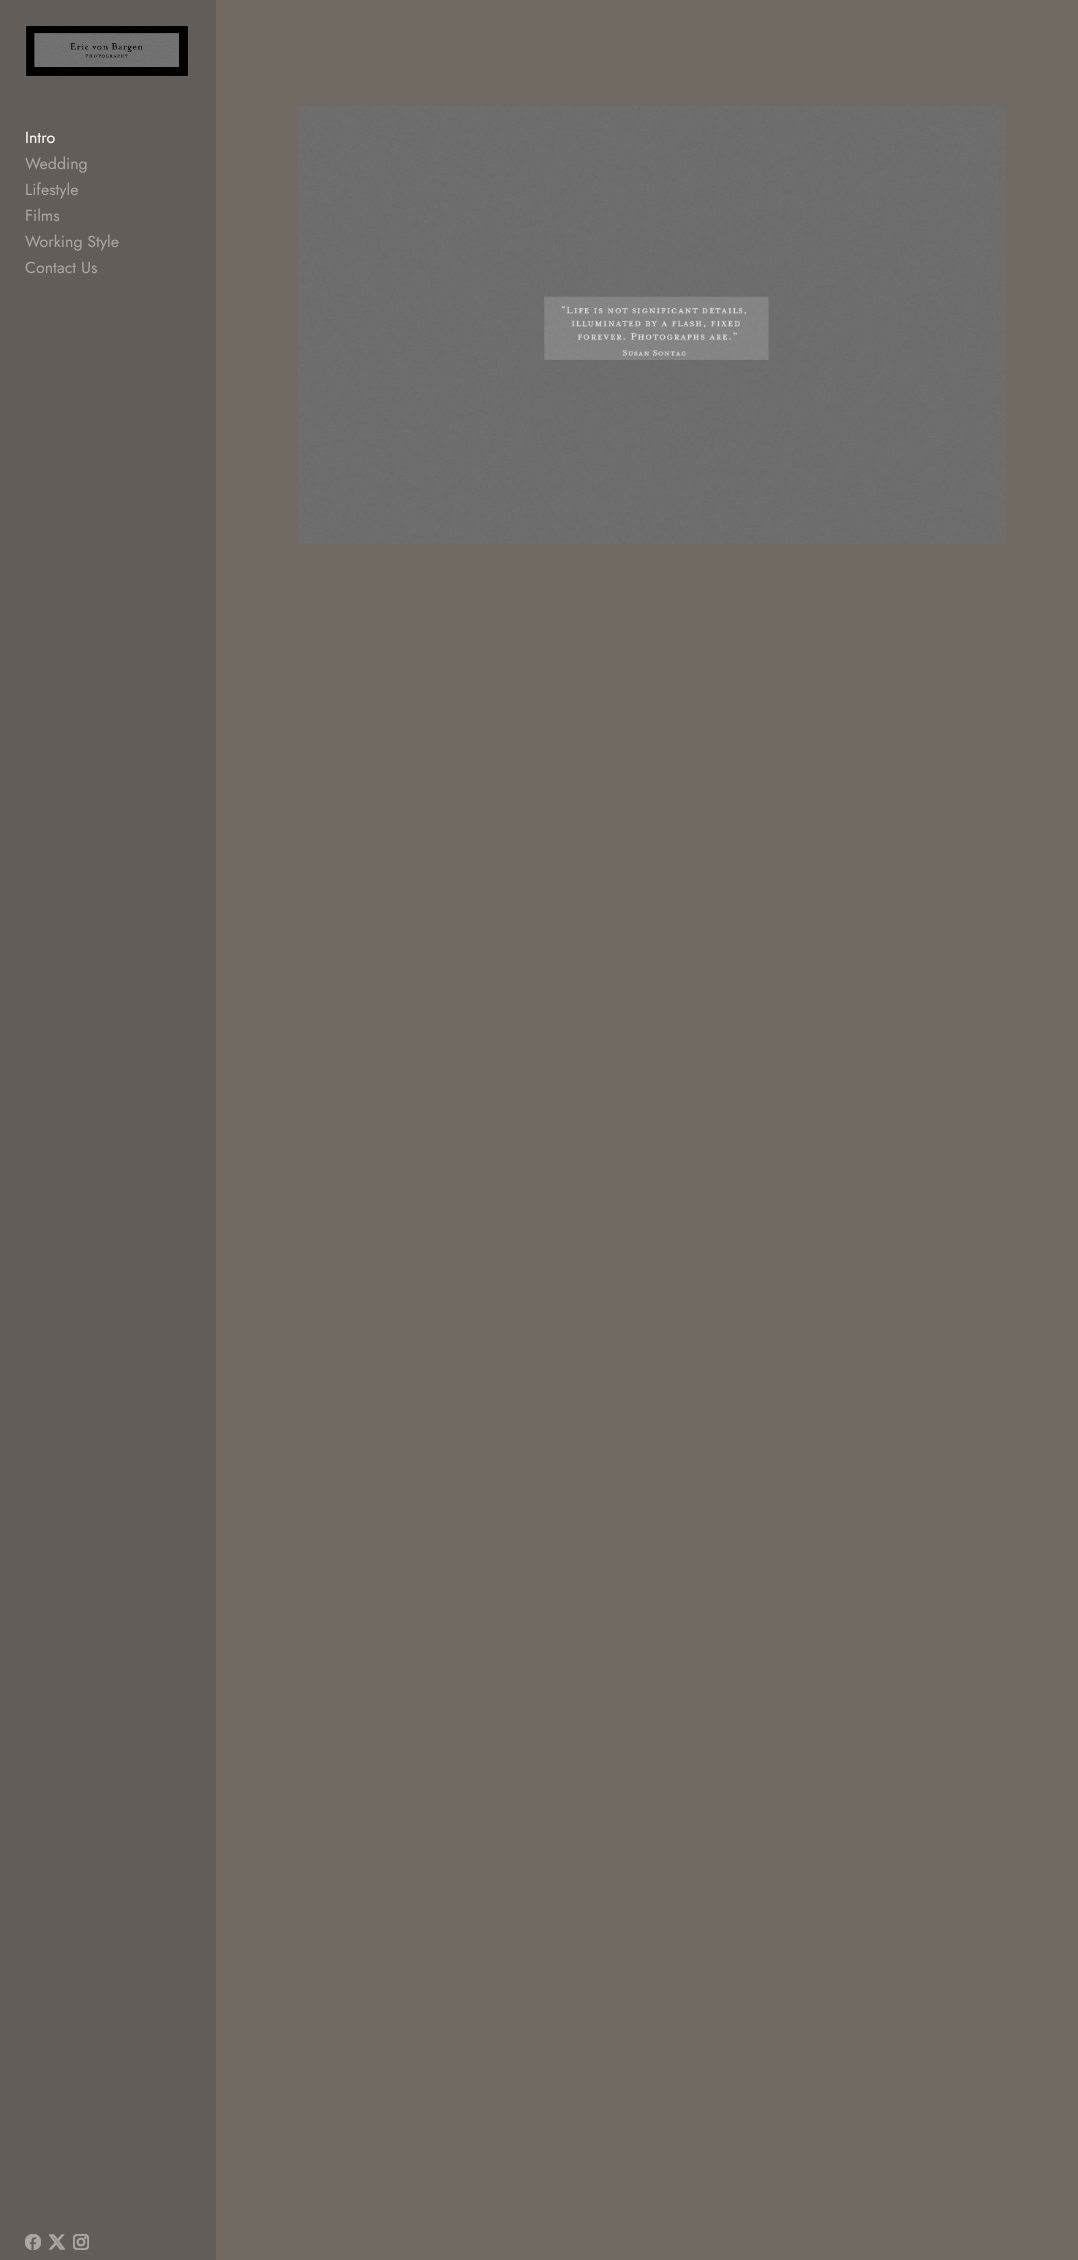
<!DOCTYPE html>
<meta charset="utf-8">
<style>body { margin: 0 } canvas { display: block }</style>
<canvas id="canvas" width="1078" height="2260"></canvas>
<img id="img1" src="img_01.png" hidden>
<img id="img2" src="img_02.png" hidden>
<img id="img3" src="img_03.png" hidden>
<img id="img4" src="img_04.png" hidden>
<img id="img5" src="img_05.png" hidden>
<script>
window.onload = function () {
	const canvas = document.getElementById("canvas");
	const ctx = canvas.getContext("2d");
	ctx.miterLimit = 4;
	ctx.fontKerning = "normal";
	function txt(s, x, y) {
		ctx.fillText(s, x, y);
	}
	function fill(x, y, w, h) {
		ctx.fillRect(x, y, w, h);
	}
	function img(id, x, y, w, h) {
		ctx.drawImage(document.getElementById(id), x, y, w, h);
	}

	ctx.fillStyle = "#706A62";
	fill(0, 0, 1078, 2260);
	ctx.fillStyle = "#625D59";
	fill(0, 0, 216, 2260);
	img("img1", 25, 25, 164, 52);
	img("img2", 25, 2234, 16, 16);
	img("img3", 49, 2234, 16, 16);
	img("img4", 73, 2234, 16, 16);
	img("img5", 298, 106, 708, 438);
	ctx.font = "16px Jost";
	ctx.fillStyle = "#FFFFFF";
	txt("Intro", 25, 143);
	ctx.fillStyle = "#AAA8A6";
	txt("Wedding", 25, 169);
	txt("Lifestyle", 25, 195);
	txt("Films", 25, 221);
	txt("Working Style", 25, 247);
	txt("Contact Us", 25, 273);
};
</script>
